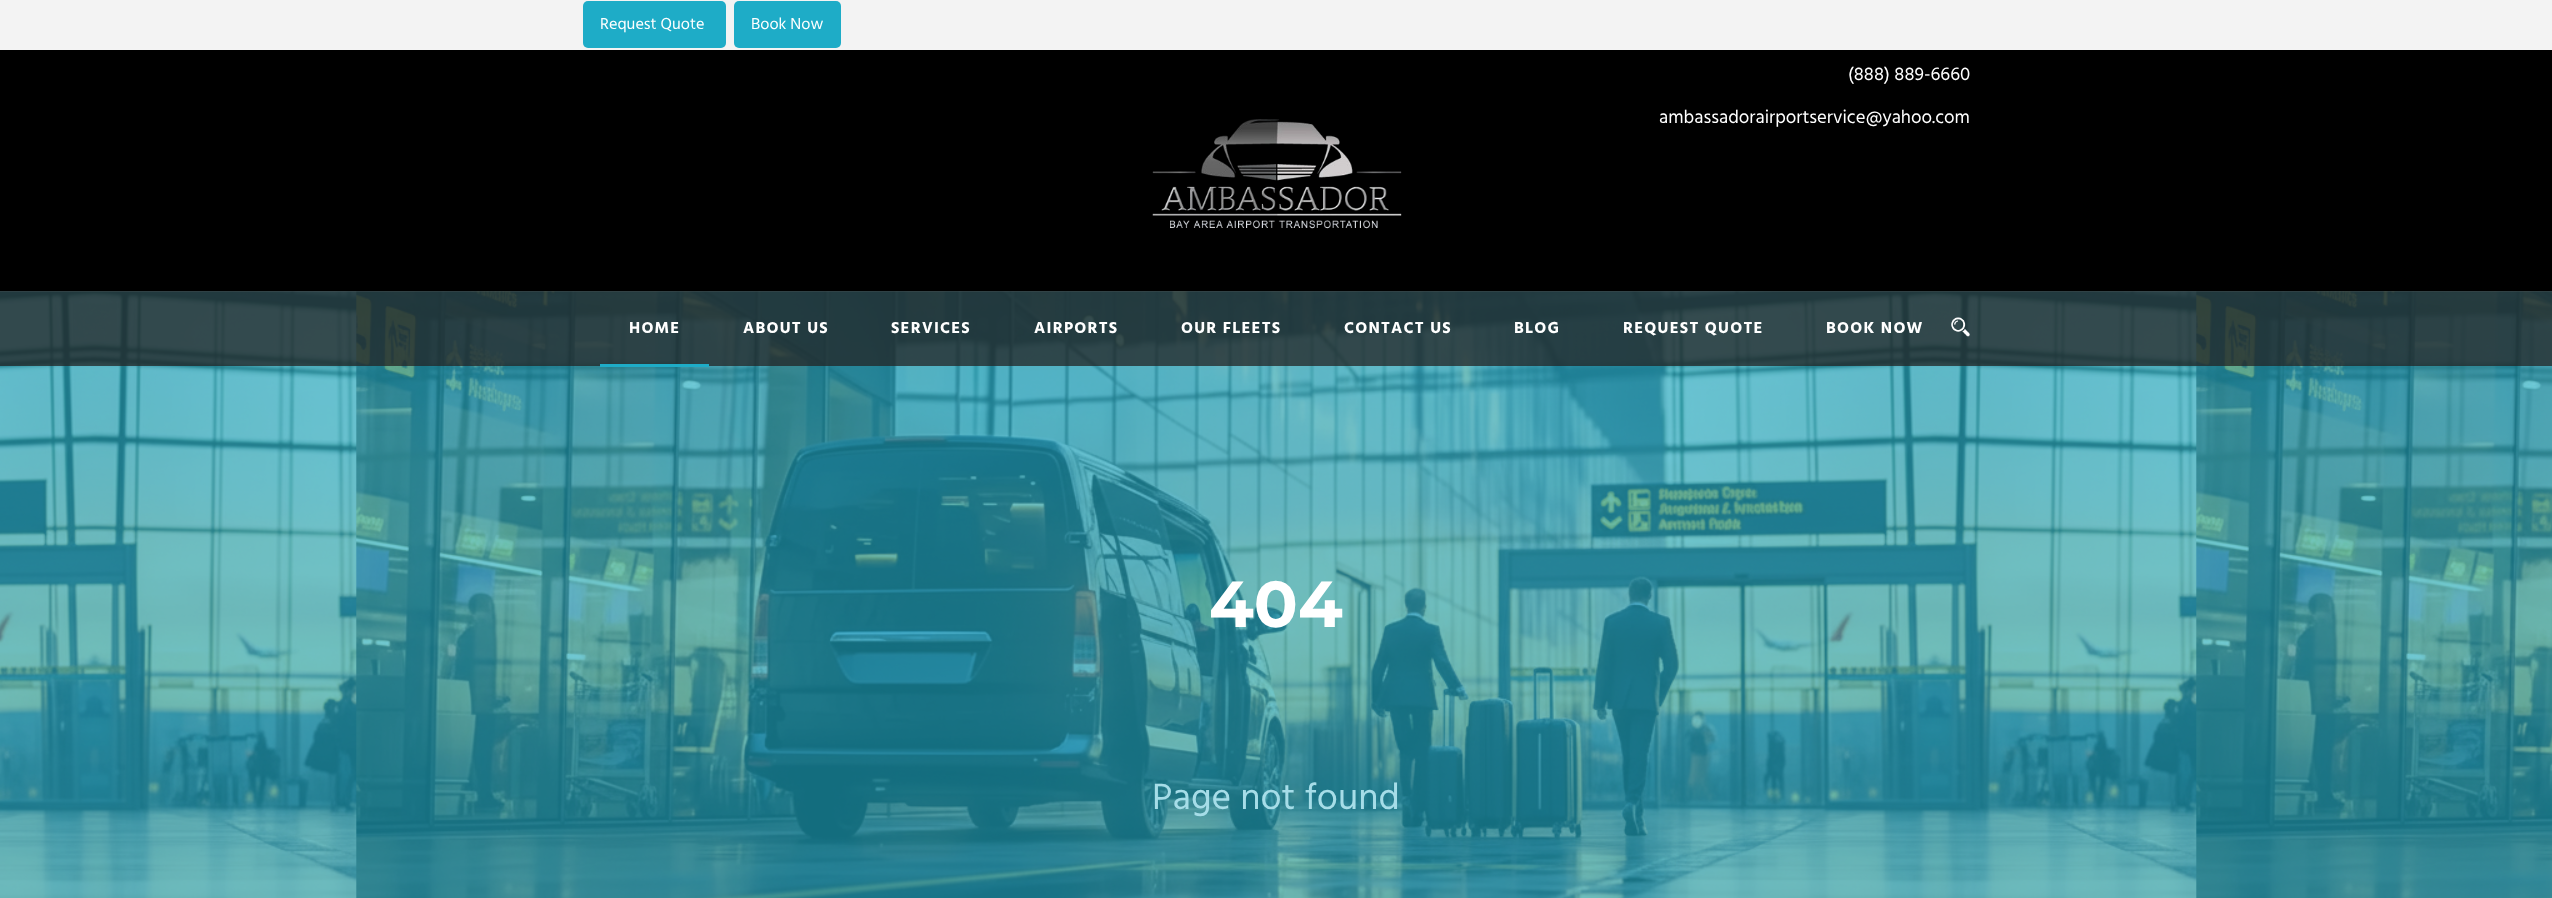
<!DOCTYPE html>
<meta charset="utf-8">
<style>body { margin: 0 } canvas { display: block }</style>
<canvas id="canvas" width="2552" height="898"></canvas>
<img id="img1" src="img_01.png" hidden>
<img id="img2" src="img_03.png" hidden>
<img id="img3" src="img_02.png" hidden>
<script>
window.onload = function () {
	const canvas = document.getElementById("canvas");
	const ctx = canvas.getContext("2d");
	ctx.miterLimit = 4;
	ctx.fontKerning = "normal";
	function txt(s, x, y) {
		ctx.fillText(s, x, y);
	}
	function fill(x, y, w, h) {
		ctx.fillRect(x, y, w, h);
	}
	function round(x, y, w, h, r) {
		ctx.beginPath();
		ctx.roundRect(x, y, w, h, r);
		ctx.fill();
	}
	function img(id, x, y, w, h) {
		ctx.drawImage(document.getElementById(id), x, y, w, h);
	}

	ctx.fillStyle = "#FFFFFF";
	fill(0, 0, 2552, 898);
	ctx.fillStyle = "#000000";
	fill(0, 50, 2552, 241);
	ctx.fillStyle = "#F3F3F3";
	fill(0, 0, 2552, 50);
	ctx.fillStyle = "#1EACC7";
	round(583, 1, 143, 47, 5);
	round(734, 1, 107, 47, 5);
	img("img1", 1152, 119, 250, 110);
	img("img2", 0, 291, 2552, 607);
	ctx.fillStyle = "rgba(35, 35, 35, 0.75)";
	fill(0, 291, 2552, 75);
	img("img3", 1951, 317, 19, 20);
	ctx.fillStyle = "#1EACC7";
	fill(600, 364, 109, 3);
	ctx.font = "16.25px Hind";
	ctx.fillStyle = "#FFFFFF";
	txt("Request Quote", 600, 29);
	txt("Book Now", 751, 29);
	ctx.font = "18.75px Hind";
	txt("(888) 889-6660", 1848, 80);
	txt("ambassadorairportservice@yahoo.com", 1659, 123);
	ctx.letterSpacing = "1.25px";
	ctx.font = "bold 16.25px Hind";
	txt("HOME", 629, 333);
	txt("ABOUT US", 743, 333);
	txt("SERVICES", 891, 333);
	txt("AIRPORTS", 1034, 333);
	txt("OUR FLEETS", 1181, 333);
	txt("CONTACT US", 1344, 333);
	txt("BLOG", 1514, 333);
	txt("REQUEST QUOTE", 1623, 333);
	txt("BOOK NOW", 1826, 333);
	ctx.letterSpacing = "0px";
	ctx.font = "bold 65px Montserrat";
	txt("404", 1209, 627);
	ctx.font = "37.5px Hind";
	ctx.fillStyle = "#A6DDE8";
	txt("Page not found", 1152, 809);
};
</script>
